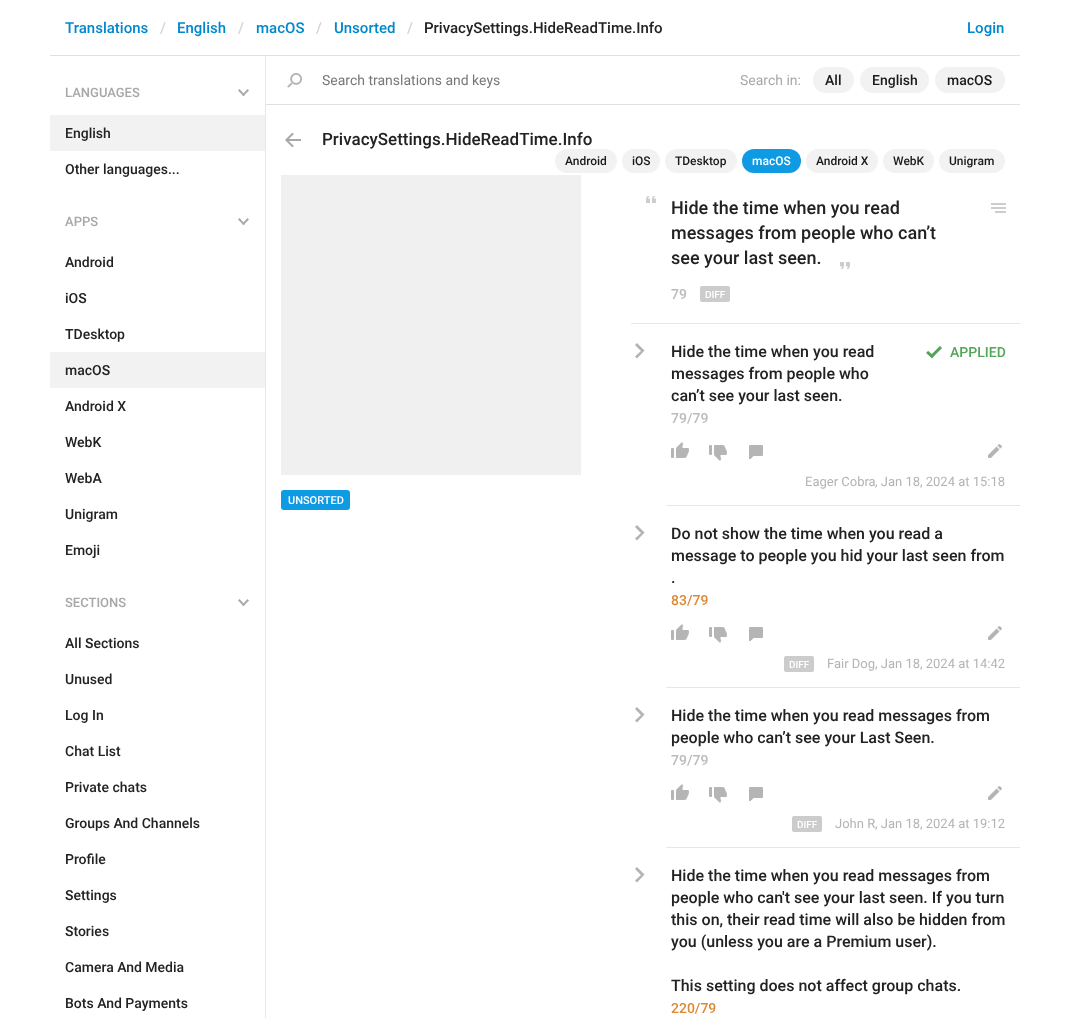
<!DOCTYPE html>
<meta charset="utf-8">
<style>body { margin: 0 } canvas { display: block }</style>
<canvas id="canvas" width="1069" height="1018"></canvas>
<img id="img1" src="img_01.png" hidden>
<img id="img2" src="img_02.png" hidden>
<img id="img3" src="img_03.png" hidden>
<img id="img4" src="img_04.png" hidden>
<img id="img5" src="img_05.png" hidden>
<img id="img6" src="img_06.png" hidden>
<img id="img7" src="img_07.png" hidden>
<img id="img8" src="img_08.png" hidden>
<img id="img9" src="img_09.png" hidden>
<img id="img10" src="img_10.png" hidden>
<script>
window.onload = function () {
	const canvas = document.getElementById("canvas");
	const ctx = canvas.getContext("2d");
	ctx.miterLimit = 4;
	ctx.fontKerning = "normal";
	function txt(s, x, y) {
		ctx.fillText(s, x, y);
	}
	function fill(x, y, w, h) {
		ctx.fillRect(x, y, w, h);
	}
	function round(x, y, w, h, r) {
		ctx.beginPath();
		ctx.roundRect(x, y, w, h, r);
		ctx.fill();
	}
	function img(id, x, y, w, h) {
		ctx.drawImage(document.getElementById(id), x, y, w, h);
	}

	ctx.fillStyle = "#FFFFFF";
	fill(0, 0, 1069, 1018);
	ctx.fillStyle = "#E0E0E0";
	fill(50, 55, 970, 1);
	fill(266, 104, 754, 1);
	img("img1", 287, 73, 15, 15);
	ctx.fillStyle = "#F2F2F2";
	round(813, 67, 41, 26, 13);
	round(860, 67, 69, 26, 13);
	round(935, 67, 70, 26, 13);
	ctx.fillStyle = "#A8A8A8";
	ctx.beginPath();
	ctx.moveTo(243.5, 96);
	ctx.lineTo(238, 90.5);
	ctx.lineTo(239.5, 89);
	ctx.lineTo(245, 95);
	ctx.closePath();
	ctx.fill();
	ctx.beginPath();
	ctx.moveTo(243.5, 96);
	ctx.lineTo(242, 95);
	ctx.lineTo(247.5, 89);
	ctx.lineTo(249, 90.5);
	ctx.closePath();
	ctx.fill();
	ctx.fillStyle = "#F2F2F2";
	fill(50, 115, 215, 36);
	ctx.fillStyle = "#A8A8A8";
	ctx.beginPath();
	ctx.moveTo(243.5, 225);
	ctx.lineTo(238, 219.5);
	ctx.lineTo(239.5, 218);
	ctx.lineTo(245, 224);
	ctx.closePath();
	ctx.fill();
	ctx.beginPath();
	ctx.moveTo(243.5, 225);
	ctx.lineTo(242, 224);
	ctx.lineTo(247.5, 218);
	ctx.lineTo(249, 219.5);
	ctx.closePath();
	ctx.fill();
	ctx.fillStyle = "#F2F2F2";
	fill(50, 352, 215, 36);
	ctx.fillStyle = "#A8A8A8";
	ctx.beginPath();
	ctx.moveTo(243.5, 606);
	ctx.lineTo(238, 600.5);
	ctx.lineTo(239.5, 599);
	ctx.lineTo(245, 605);
	ctx.closePath();
	ctx.fill();
	ctx.beginPath();
	ctx.moveTo(243.5, 606);
	ctx.lineTo(242, 605);
	ctx.lineTo(247.5, 599);
	ctx.lineTo(249, 600.5);
	ctx.closePath();
	ctx.fill();
	ctx.fillStyle = "#E7E7E7";
	fill(265, 56, 1, 962);
	img("img2", 285, 133, 16, 14);
	ctx.fillStyle = "#F2F2F2";
	round(555, 149, 62, 24, 12);
	round(622, 149, 38, 24, 12);
	round(665, 149, 72, 24, 12);
	ctx.fillStyle = "#0F9AE4";
	round(742, 149, 59, 24, 12);
	ctx.fillStyle = "#F2F2F2";
	round(806, 149, 72, 24, 12);
	round(883, 149, 51, 24, 12);
	round(939, 149, 66, 24, 12);
	ctx.fillStyle = "#F0F0F0";
	fill(281, 175, 300, 300);
	ctx.fillStyle = "#0F9AE4";
	round(281, 490, 69, 20, 3);
	img("img3", 646, 196, 10, 7);
	img("img4", 840, 262, 10, 7);
	img("img5", 991, 203, 15, 10);
	ctx.fillStyle = "#CCCCCC";
	round(700, 286, 30, 16, 2);
	ctx.fillStyle = "#E7E7E7";
	fill(631, 323, 389, 1);
	ctx.save();
	ctx.beginPath();
	ctx.rect(606, 324, 414, 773);
	ctx.clip();
	ctx.beginPath();
	ctx.moveTo(666, 505);
	ctx.lineTo(666, 506);
	ctx.lineTo(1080, 506);
	ctx.lineTo(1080, 325);
	ctx.lineTo(1020, 325);
	ctx.lineTo(1020, 505);
	ctx.closePath();
	ctx.fill();
	ctx.restore();
	ctx.fillStyle = "#B3B3B3";
	ctx.beginPath();
	ctx.moveTo(641, 351);
	ctx.lineTo(635, 356.5);
	ctx.lineTo(637, 358.5);
	ctx.lineTo(644.5, 350.5);
	ctx.lineTo(637, 343);
	ctx.lineTo(635, 345);
	ctx.closePath();
	ctx.fill();
	img("img6", 671, 442, 18, 16);
	img("img7", 709, 445, 18, 16);
	img("img8", 749, 445, 14, 14);
	img("img9", 988, 444, 14, 14);
	img("img10", 926, 346, 16, 13);
	ctx.save();
	ctx.beginPath();
	ctx.rect(606, 324, 414, 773);
	ctx.clip();
	ctx.fillStyle = "#E7E7E7";
	ctx.beginPath();
	ctx.moveTo(666, 687);
	ctx.lineTo(666, 688);
	ctx.lineTo(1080, 688);
	ctx.lineTo(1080, 507);
	ctx.lineTo(1020, 507);
	ctx.lineTo(1020, 687);
	ctx.closePath();
	ctx.fill();
	ctx.restore();
	ctx.beginPath();
	ctx.moveTo(641, 533);
	ctx.lineTo(635, 538.5);
	ctx.lineTo(637, 540.5);
	ctx.lineTo(644.5, 532.5);
	ctx.lineTo(637, 525);
	ctx.lineTo(635, 527);
	ctx.closePath();
	ctx.fill();
	img("img6", 671, 624, 18, 16);
	img("img7", 709, 627, 18, 16);
	img("img8", 749, 627, 14, 14);
	img("img9", 988, 626, 14, 14);
	ctx.fillStyle = "#CCCCCC";
	round(784, 656, 30, 16, 2);
	ctx.save();
	ctx.beginPath();
	ctx.rect(606, 324, 414, 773);
	ctx.clip();
	ctx.fillStyle = "#E7E7E7";
	ctx.beginPath();
	ctx.moveTo(666, 847);
	ctx.lineTo(666, 848);
	ctx.lineTo(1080, 848);
	ctx.lineTo(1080, 689);
	ctx.lineTo(1020, 689);
	ctx.lineTo(1020, 847);
	ctx.closePath();
	ctx.fill();
	ctx.restore();
	ctx.fillStyle = "#B3B3B3";
	ctx.beginPath();
	ctx.moveTo(641, 715);
	ctx.lineTo(635, 720.5);
	ctx.lineTo(637, 722.5);
	ctx.lineTo(644.5, 714.5);
	ctx.lineTo(637, 707);
	ctx.lineTo(635, 709);
	ctx.closePath();
	ctx.fill();
	img("img6", 671, 784, 18, 16);
	img("img7", 709, 787, 18, 16);
	img("img8", 749, 787, 14, 14);
	img("img9", 988, 786, 14, 14);
	ctx.fillStyle = "#CCCCCC";
	round(792, 816, 30, 16, 2);
	ctx.fillStyle = "#B3B3B3";
	ctx.beginPath();
	ctx.moveTo(641, 875);
	ctx.lineTo(635, 880.5);
	ctx.lineTo(637, 882.5);
	ctx.lineTo(644.5, 874.5);
	ctx.lineTo(637, 867);
	ctx.lineTo(635, 869);
	ctx.closePath();
	ctx.fill();
	ctx.font = "500 15px Roboto";
	ctx.fillStyle = "#0088CC";
	txt("Translations", 65, 33);
	ctx.fillStyle = "#D4D4D4";
	txt("/", 160, 33);
	ctx.fillStyle = "#0088CC";
	txt("English", 177, 33);
	ctx.fillStyle = "#D4D4D4";
	txt("/", 238, 33);
	ctx.fillStyle = "#0088CC";
	txt("macOS", 256, 33);
	ctx.fillStyle = "#D4D4D4";
	txt("/", 316, 33);
	ctx.fillStyle = "#0088CC";
	txt("Unsorted", 334, 33);
	ctx.fillStyle = "#D4D4D4";
	txt("/", 407, 33);
	ctx.fillStyle = "#222222";
	txt("PrivacySettings.HideReadTime.Info", 424, 33);
	ctx.fillStyle = "#0088CC";
	txt("Login", 967, 33);
	ctx.font = "14px Roboto";
	ctx.fillStyle = "#777777";
	txt("Search translations and keys", 322, 85);
	ctx.fillStyle = "#A8A8A8";
	txt("Search in:", 740, 85);
	ctx.font = "500 14px Roboto";
	ctx.fillStyle = "#1A1A1A";
	txt("All", 825, 85);
	txt("English", 872, 85);
	txt("macOS", 947, 85);
	ctx.font = "500 13px Roboto";
	ctx.fillStyle = "#A8A8A8";
	txt("LANGUAGES", 65, 97);
	ctx.font = "500 14px Roboto";
	ctx.fillStyle = "#222222";
	txt("English", 65, 138);
	txt("Other languages...", 65, 174);
	ctx.font = "500 13px Roboto";
	ctx.fillStyle = "#A8A8A8";
	txt("APPS", 65, 226);
	ctx.font = "500 14px Roboto";
	ctx.fillStyle = "#222222";
	txt("Android", 65, 267);
	txt("iOS", 65, 303);
	txt("TDesktop", 65, 339);
	txt("macOS", 65, 375);
	txt("Android X", 65, 411);
	txt("WebK", 65, 447);
	txt("WebA", 65, 483);
	txt("Unigram", 65, 519);
	txt("Emoji", 65, 555);
	ctx.font = "500 13px Roboto";
	ctx.fillStyle = "#A8A8A8";
	txt("SECTIONS", 65, 607);
	ctx.font = "500 14px Roboto";
	ctx.fillStyle = "#222222";
	txt("All Sections", 65, 648);
	txt("Unused", 65, 684);
	txt("Log In", 65, 720);
	txt("Chat List", 65, 756);
	txt("Private chats", 65, 792);
	txt("Groups And Channels", 65, 828);
	txt("Profile", 65, 864);
	txt("Settings", 65, 900);
	txt("Stories", 65, 936);
	txt("Camera And Media", 65, 972);
	txt("Bots And Payments", 65, 1008);
	ctx.font = "500 17px Roboto";
	txt("PrivacySettings.HideReadTime.Info", 322, 145);
	ctx.font = "500 12px Roboto";
	ctx.fillStyle = "#1A1A1A";
	txt("Android", 565, 165);
	txt("iOS", 632, 165);
	txt("TDesktop", 675, 165);
	ctx.fillStyle = "#FFFFFF";
	txt("macOS", 752, 165);
	ctx.fillStyle = "#1A1A1A";
	txt("Android X", 816, 165);
	txt("WebK", 893, 165);
	txt("Unigram", 949, 165);
	ctx.font = "500 11px Roboto";
	ctx.fillStyle = "#FFFFFF";
	txt("UNSORTED", 288, 504);
	ctx.font = "500 18px Roboto";
	ctx.fillStyle = "#222222";
	txt("Hide the time when you read", 671, 214);
	txt("messages from people who can’t", 671, 239);
	txt("see your last seen.", 671, 264);
	ctx.font = "500 14px Roboto";
	ctx.fillStyle = "#BBBBBB";
	txt("79", 671, 299);
	ctx.font = "500 10px Roboto";
	ctx.fillStyle = "#FFFFFF";
	txt("DIFF", 705, 298);
	ctx.font = "500 16px Roboto";
	ctx.fillStyle = "#222222";
	txt("Hide the time when you read", 671, 357);
	txt("messages from people who", 671, 379);
	txt("can’t see your last seen.", 671, 401);
	ctx.font = "500 14px Roboto";
	ctx.fillStyle = "#BBBBBB";
	txt("79/79", 671, 423);
	ctx.font = "13px Roboto";
	ctx.fillStyle = "#B3B3B3";
	txt("Eager Cobra", 805, 486);
	txt(", Jan 18, 2024 at 15:18", 875, 486);
	ctx.font = "500 14px Roboto";
	ctx.fillStyle = "#51A657";
	txt("APPLIED", 950, 357);
	ctx.font = "500 16px Roboto";
	ctx.fillStyle = "#222222";
	txt("Do not show the time when you read a", 671, 539);
	txt("message to people you hid your last seen from", 671, 561);
	txt(".", 671, 583);
	ctx.font = "500 14px Roboto";
	ctx.fillStyle = "#DE8833";
	txt("83/79", 671, 605);
	ctx.font = "500 10px Roboto";
	ctx.fillStyle = "#FFFFFF";
	txt("DIFF", 789, 668);
	ctx.font = "13px Roboto";
	ctx.fillStyle = "#B3B3B3";
	txt("Fair Dog", 827, 668);
	txt(", Jan 18, 2024 at 14:42", 875, 668);
	ctx.font = "500 16px Roboto";
	ctx.fillStyle = "#222222";
	txt("Hide the time when you read messages from", 671, 721);
	txt("people who can’t see your Last Seen.", 671, 743);
	ctx.font = "500 14px Roboto";
	ctx.fillStyle = "#BBBBBB";
	txt("79/79", 671, 765);
	ctx.font = "500 10px Roboto";
	ctx.fillStyle = "#FFFFFF";
	txt("DIFF", 797, 828);
	ctx.font = "13px Roboto";
	ctx.fillStyle = "#B3B3B3";
	txt("John R", 835, 828);
	txt(", Jan 18, 2024 at 19:12", 875, 828);
	ctx.font = "500 16px Roboto";
	ctx.fillStyle = "#222222";
	txt("Hide the time when you read messages from", 671, 881);
	txt("people who can", 671, 903);
	txt("'t see your last seen. If you turn", 782, 903);
	txt("this on, their read time will also be hidden from", 671, 925);
	txt("you (unless you are a Premium user).", 671, 947);
	txt("This setting does not affect group chats.", 671, 991);
	ctx.font = "500 14px Roboto";
	ctx.fillStyle = "#DE8833";
	txt("220/79", 671, 1013);
};
</script>
